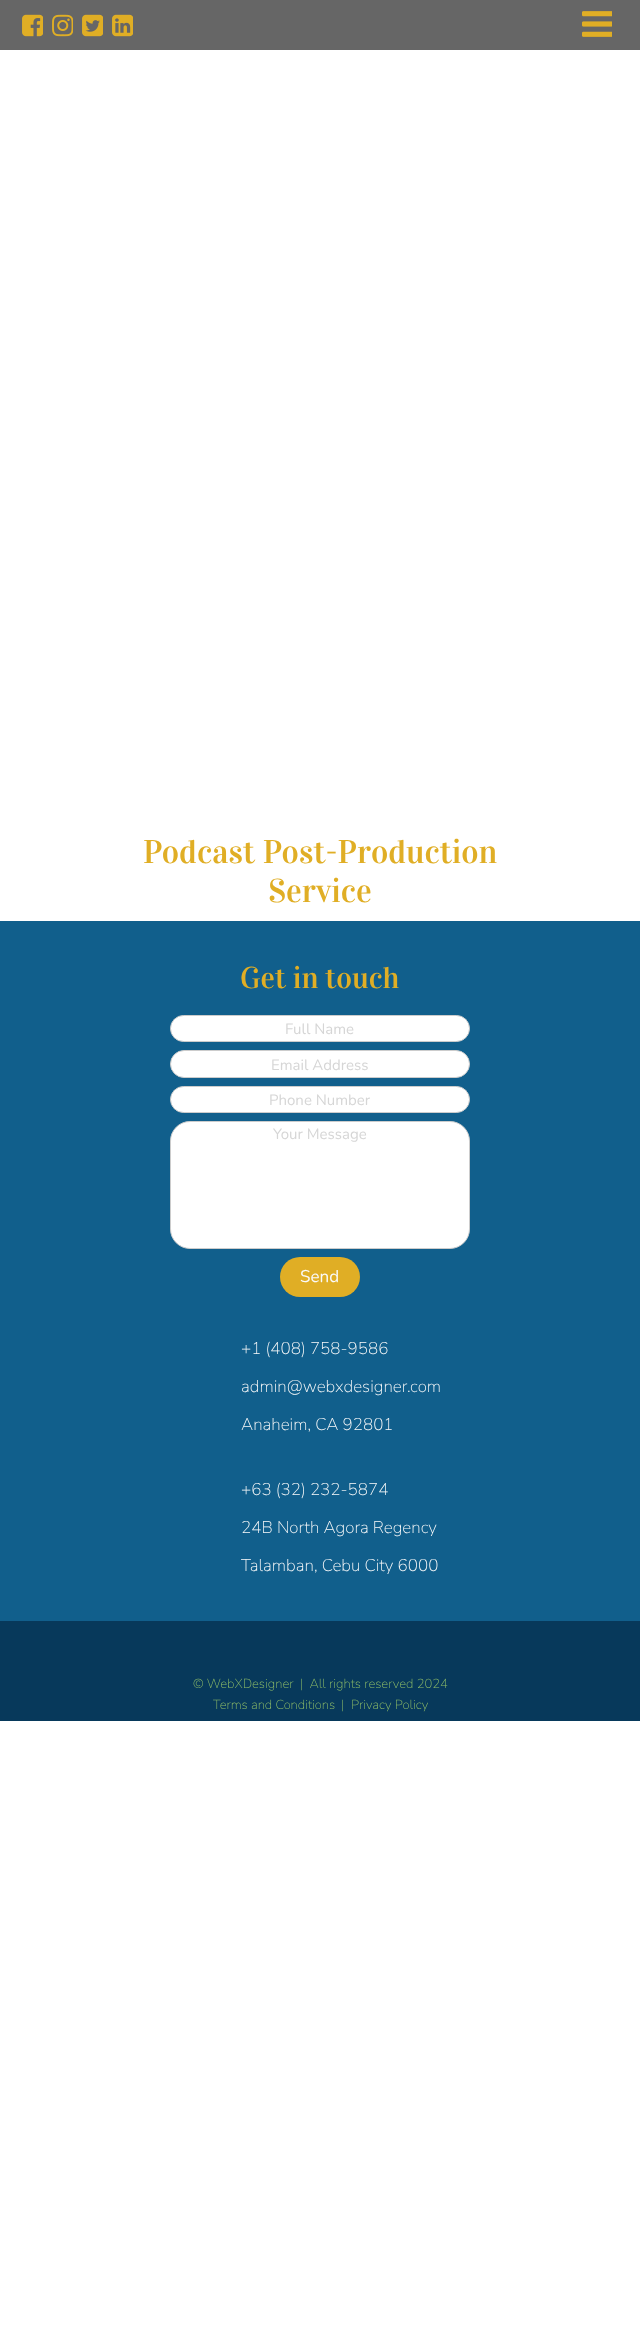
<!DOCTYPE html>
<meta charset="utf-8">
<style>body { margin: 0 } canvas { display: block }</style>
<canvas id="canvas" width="640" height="2345"></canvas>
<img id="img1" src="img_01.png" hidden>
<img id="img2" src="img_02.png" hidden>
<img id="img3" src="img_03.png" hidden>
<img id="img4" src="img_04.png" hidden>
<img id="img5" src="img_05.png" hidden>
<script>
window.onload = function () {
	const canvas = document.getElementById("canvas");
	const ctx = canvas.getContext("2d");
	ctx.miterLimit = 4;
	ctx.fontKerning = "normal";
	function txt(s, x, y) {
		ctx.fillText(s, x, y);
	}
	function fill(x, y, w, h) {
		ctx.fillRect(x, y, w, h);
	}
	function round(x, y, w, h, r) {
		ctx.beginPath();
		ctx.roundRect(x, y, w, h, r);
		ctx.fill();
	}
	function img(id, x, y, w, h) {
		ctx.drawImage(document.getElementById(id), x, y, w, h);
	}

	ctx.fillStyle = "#FFFFFF";
	fill(0, 0, 640, 2345);
	ctx.fillStyle = "#666666";
	fill(0, 0, 640, 50);
	img("img1", 22, 14, 21, 23);
	img("img2", 52, 14, 21, 23);
	img("img3", 82, 14, 21, 23);
	img("img4", 112, 14, 21, 23);
	img("img5", 582, 11, 30, 26);
	ctx.fillStyle = "#115F8C";
	fill(0, 921, 640, 700);
	ctx.fillStyle = "#07395B";
	fill(0, 1621, 640, 100);
	ctx.fillStyle = "#FFFFFF";
	ctx.beginPath();
	ctx.roundRect(170.5, 1015.5, 299, 26, 13);
	ctx.fill();
	ctx.strokeStyle = "#CCCCCC";
	ctx.stroke();
	ctx.beginPath();
	ctx.roundRect(170.5, 1050.5, 299, 27, 13.5);
	ctx.fill();
	ctx.stroke();
	ctx.beginPath();
	ctx.roundRect(170.5, 1086.5, 299, 26, 13);
	ctx.fill();
	ctx.stroke();
	ctx.beginPath();
	ctx.roundRect(170.5, 1121.5, 299, 127, 19.5);
	ctx.fill();
	ctx.stroke();
	ctx.fillStyle = "#E0AE25";
	round(280, 1257, 80, 40, 20);
	ctx.font = "33px Vidaloka";
	txt("Podcast Post-Production", 143, 863);
	txt("Service", 268, 902);
	ctx.font = "30px Vidaloka";
	txt("Get in touch", 240, 988);
	ctx.font = "15px Nunito";
	ctx.fillStyle = "#D6D6D6";
	txt("Full Name", 285, 1034);
	txt("Email Address", 271, 1070);
	txt("Phone Number", 269, 1105);
	txt("Your Message", 273, 1139);
	ctx.font = "17px Nunito";
	ctx.fillStyle = "#FAFAFA";
	txt("Send", 300, 1282);
	ctx.font = "200 17px Nunito Sans";
	txt("+1 (408) 758-9586", 241, 1354);
	txt("admin@webxdesigner.com", 241, 1392);
	txt("Anaheim, CA 92801", 241, 1430);
	txt("+63 (32) 232-5874", 241, 1495);
	txt("24B North Agora Regency", 241, 1533);
	txt("Talamban, Cebu City 6000", 241, 1571);
	ctx.font = "200 13px Nunito Sans";
	ctx.fillStyle = "#8FBE68";
	txt("© WebXDesigner  |  All rights reserved 2024", 193, 1688);
	txt("Terms and Conditions", 213, 1709);
	txt("|", 341, 1709);
	txt("Privacy Policy", 351, 1709);
};
</script>
